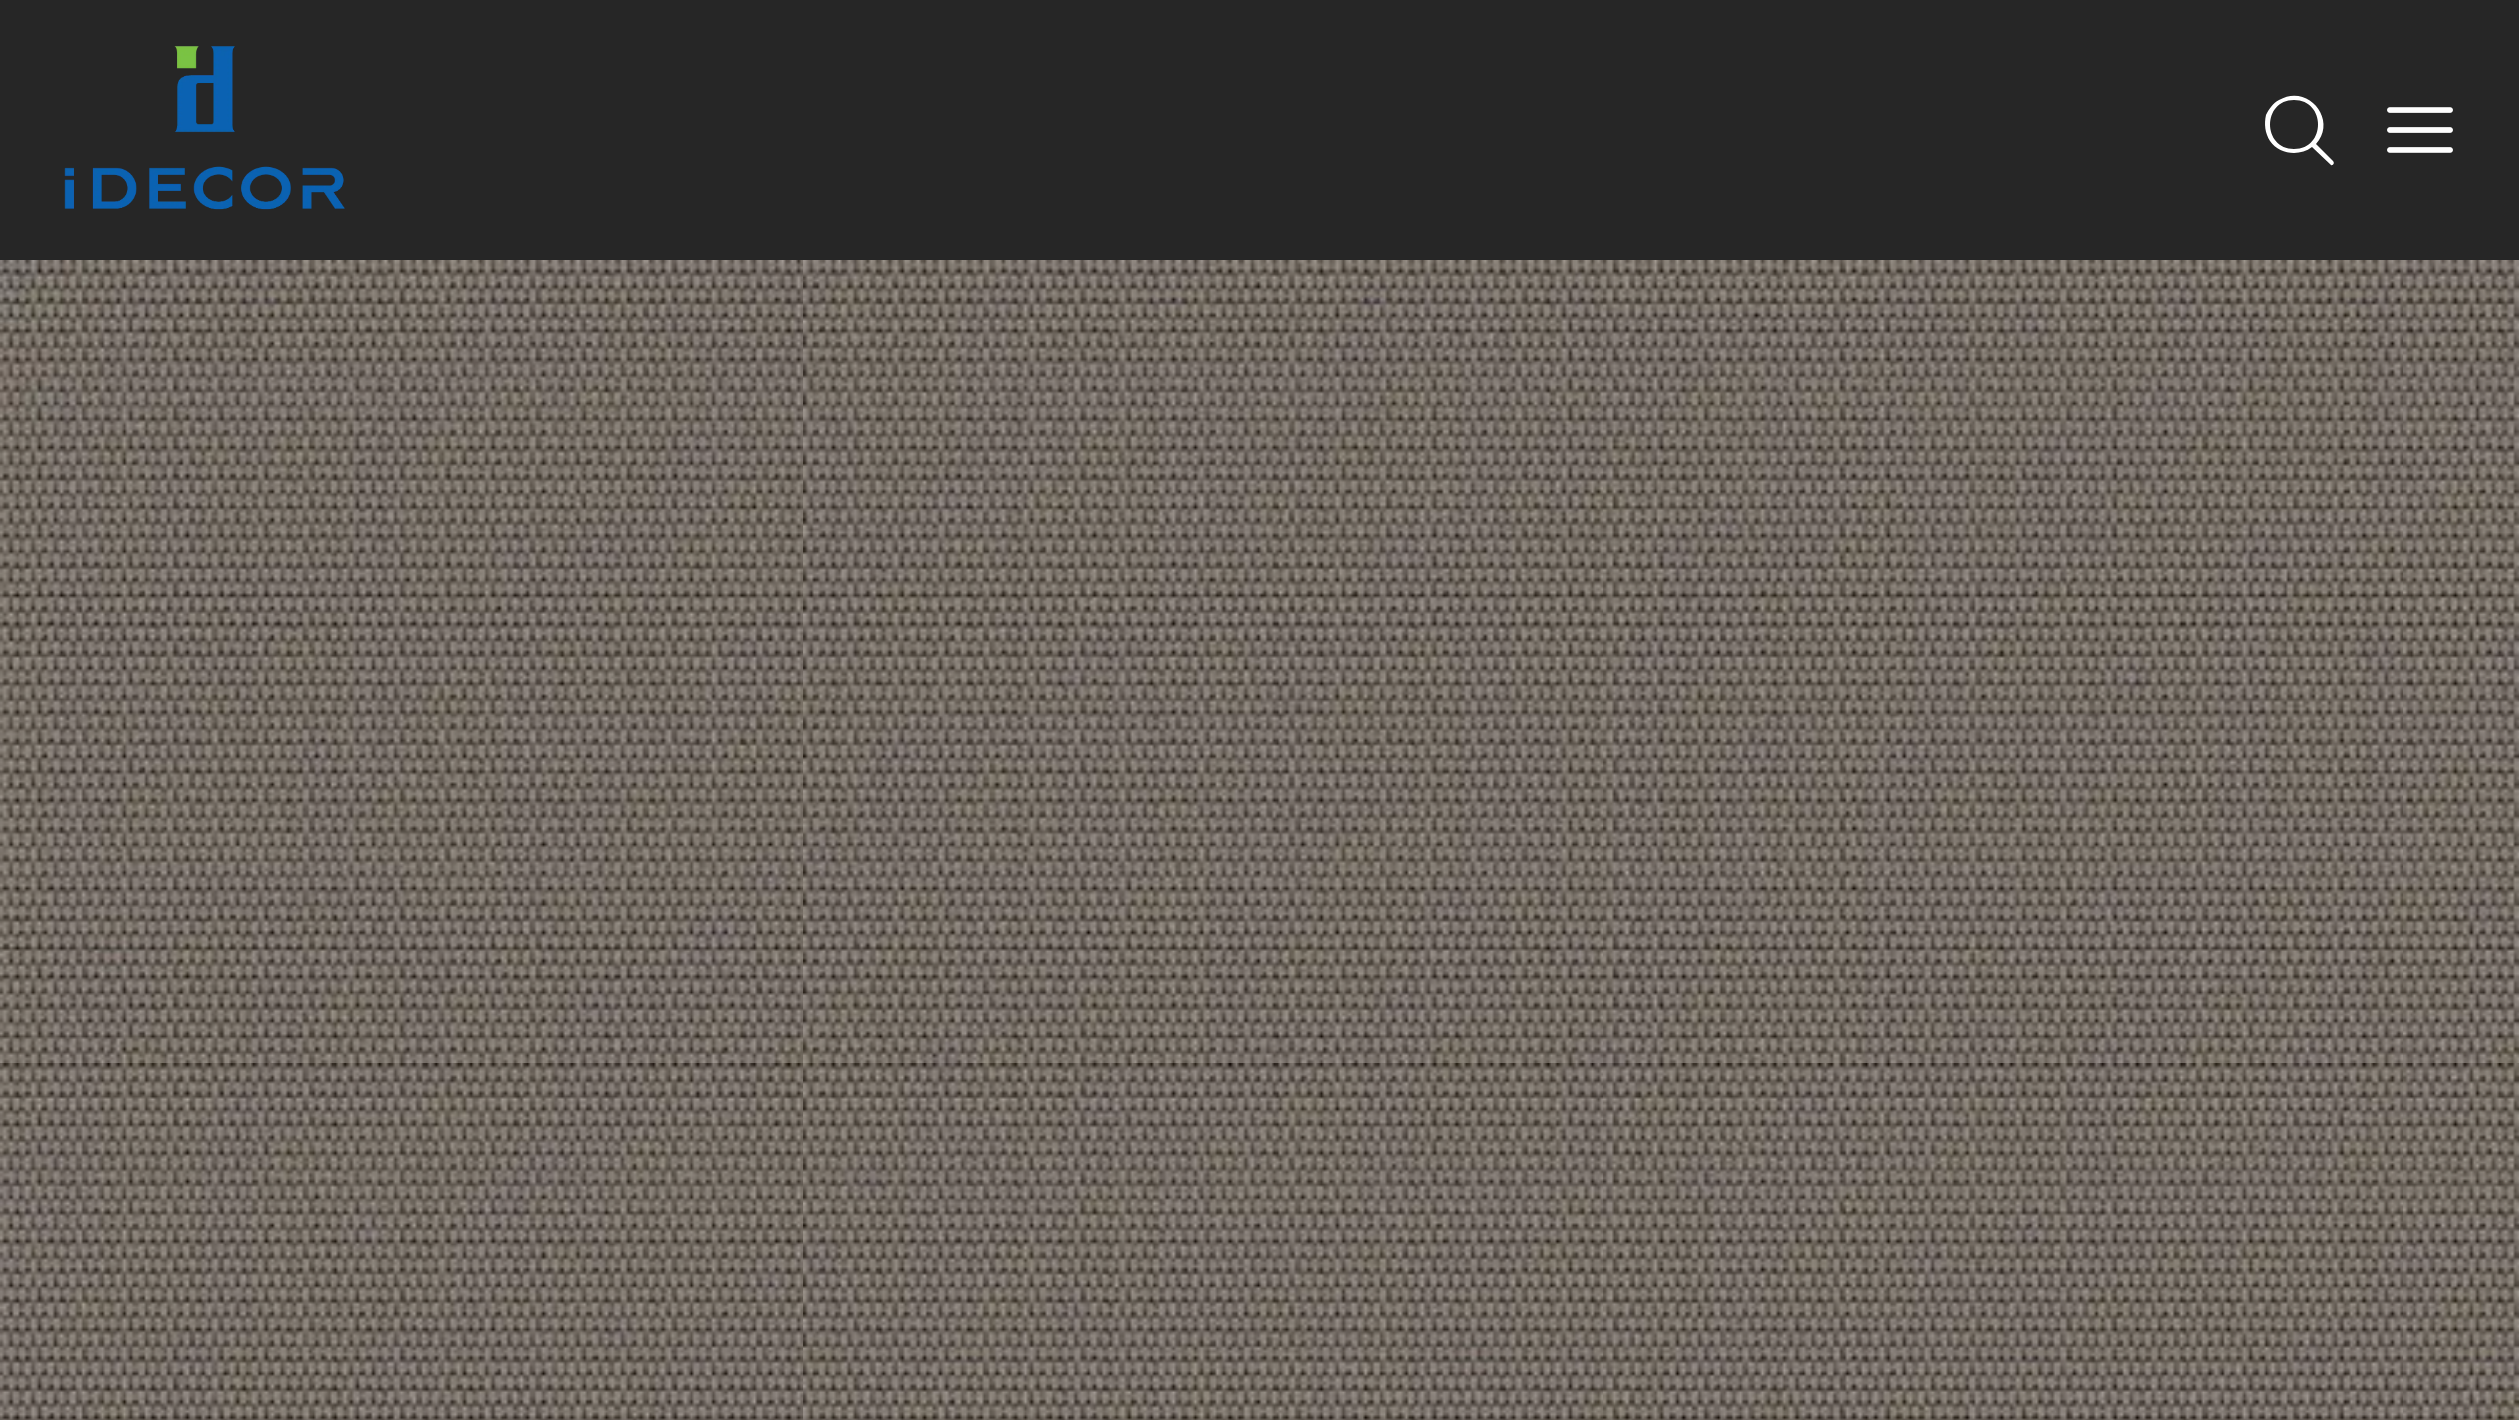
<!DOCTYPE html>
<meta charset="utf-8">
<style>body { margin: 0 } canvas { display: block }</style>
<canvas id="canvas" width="2519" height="1420"></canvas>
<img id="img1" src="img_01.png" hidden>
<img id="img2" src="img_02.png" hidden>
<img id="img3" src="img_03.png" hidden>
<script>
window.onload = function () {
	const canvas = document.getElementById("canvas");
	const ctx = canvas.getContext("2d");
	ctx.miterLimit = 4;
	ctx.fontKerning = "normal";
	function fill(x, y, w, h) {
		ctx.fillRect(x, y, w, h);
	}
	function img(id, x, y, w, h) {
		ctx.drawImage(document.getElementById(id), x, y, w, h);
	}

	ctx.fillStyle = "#FFFFFF";
	fill(0, 0, 2519, 1420);
	ctx.fillStyle = "#262626";
	fill(0, 0, 2519, 260);
	img("img1", 64, 46, 281, 164);
	ctx.fillStyle = "#FFFFFF";
	ctx.beginPath();
	ctx.moveTo(2333, 161);
	ctx.lineTo(2316, 144);
	ctx.bezierCurveTo(2338, 120, 2308, 83, 2279, 100);
	ctx.bezierCurveTo(2273, 103, 2269, 109, 2266, 115);
	ctx.bezierCurveTo(2264, 124, 2265, 133, 2270, 141);
	ctx.bezierCurveTo(2279, 154, 2299, 157, 2312, 147);
	ctx.lineTo(2331, 165);
	ctx.bezierCurveTo(2333, 166, 2335, 163, 2333, 161);
	ctx.closePath();
	ctx.moveTo(2294, 149);
	ctx.bezierCurveTo(2262, 149, 2262, 100, 2294, 100);
	ctx.bezierCurveTo(2326, 100, 2326, 149, 2294, 149);
	ctx.closePath();
	ctx.fill();
	img("img2", 2387, 107, 66, 46);
	img("img3", 0, 260, 2519, 1160);
};
</script>
